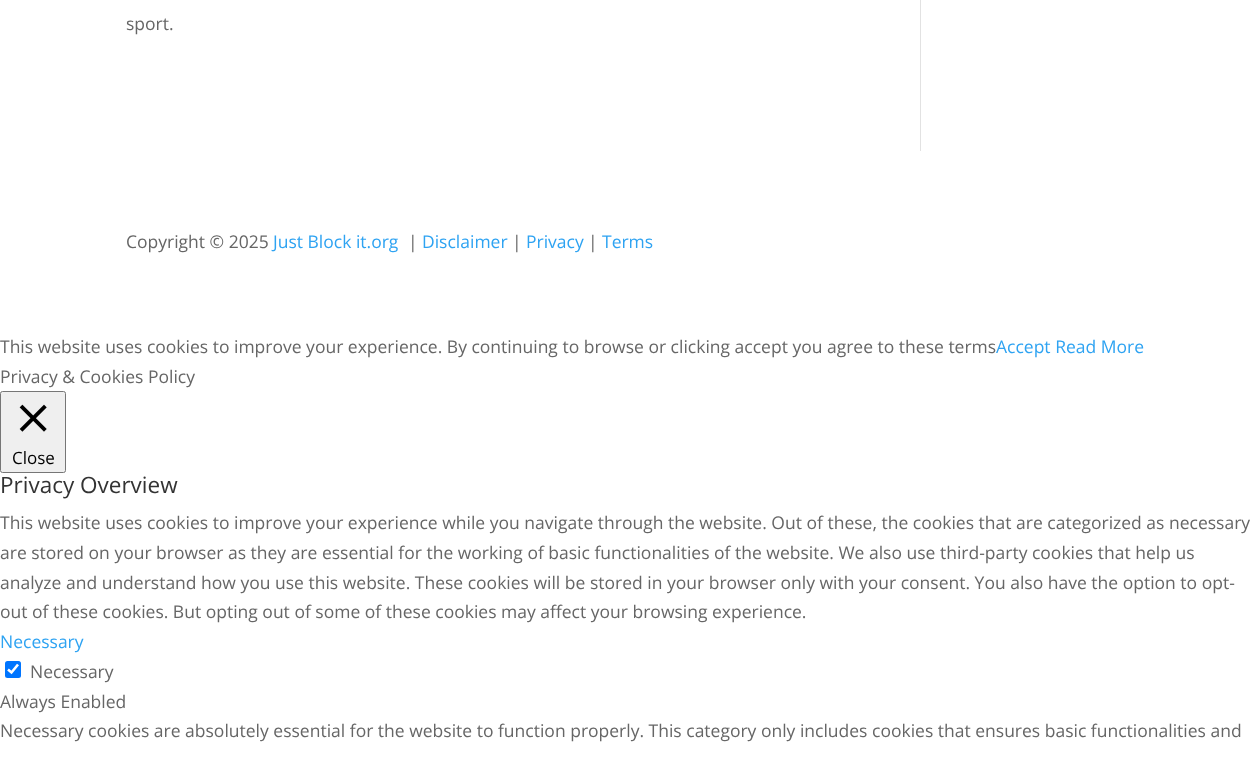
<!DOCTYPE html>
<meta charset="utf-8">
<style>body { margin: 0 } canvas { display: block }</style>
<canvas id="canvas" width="1257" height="761"></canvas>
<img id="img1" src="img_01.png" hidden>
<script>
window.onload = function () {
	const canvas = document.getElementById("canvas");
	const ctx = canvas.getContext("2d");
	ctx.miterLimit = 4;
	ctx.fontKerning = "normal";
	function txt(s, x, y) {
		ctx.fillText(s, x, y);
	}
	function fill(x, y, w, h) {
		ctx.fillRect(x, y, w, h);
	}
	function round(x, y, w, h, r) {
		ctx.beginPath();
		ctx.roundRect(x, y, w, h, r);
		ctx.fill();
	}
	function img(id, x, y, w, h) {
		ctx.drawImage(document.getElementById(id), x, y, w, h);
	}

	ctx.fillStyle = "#FFFFFF";
	fill(0, 0, 1257, 761);
	ctx.fillStyle = "#E2E2E2";
	fill(920, 0, 1, 151);
	ctx.fillStyle = "#EFEFEF";
	ctx.beginPath();
	ctx.roundRect(0.5, 391.5, 65, 81, 2);
	ctx.fill();
	ctx.strokeStyle = "#767676";
	ctx.stroke();
	img("img1", 19, 404, 28, 28);
	ctx.fillStyle = "#0075FF";
	round(5, 661, 16, 17, 2.5);
	ctx.beginPath();
	ctx.moveTo(8, 669.5);
	ctx.lineTo(11.5, 672.5);
	ctx.lineTo(18, 664.5);
	ctx.strokeStyle = "#FFFFFF";
	ctx.lineWidth = 2.6;
	ctx.stroke();
	ctx.font = "17.5px Open Sans";
	ctx.fillStyle = "#666666";
	txt("sport.", 126, 30);
	txt("Copyright © 2025", 126, 248);
	ctx.fillStyle = "#2EA3F2";
	txt("Just Block it.org", 273, 248);
	ctx.fillStyle = "#666666";
	txt("|", 408, 248);
	ctx.fillStyle = "#2EA3F2";
	txt("Disclaimer", 422, 248);
	ctx.fillStyle = "#666666";
	txt("|", 512, 248);
	ctx.fillStyle = "#2EA3F2";
	txt("Privacy", 526, 248);
	ctx.fillStyle = "#666666";
	txt("|", 588, 248);
	ctx.fillStyle = "#2EA3F2";
	txt("Terms", 602, 248);
	ctx.fillStyle = "#666666";
	txt("This website uses cookies to improve your experience. By continuing to browse or clicking accept you agree to these terms", 0, 353);
	ctx.fillStyle = "#2EA3F2";
	txt("Accept Read More", 996, 353);
	ctx.fillStyle = "#666666";
	txt("Privacy & Cookies Policy", 0, 383);
	ctx.font = "17px Open Sans";
	ctx.fillStyle = "#000000";
	txt("Close", 12, 464);
	ctx.font = "22.5px Open Sans";
	ctx.fillStyle = "#333333";
	txt("Privacy Overview", 0, 493);
	ctx.font = "17.5px Open Sans";
	ctx.fillStyle = "#666666";
	txt("This website uses cookies to improve your experience while you navigate through the website. Out of these, the cookies that are categorized as necessary", 0, 529);
	txt("are stored on your browser as they are essential for the working of basic functionalities of the website. We also use third-party cookies that help us", 0, 559);
	txt("analyze and understand how you use this website. These cookies will be stored in your browser only with your consent. You also have the option to opt-", 0, 589);
	txt("out of these cookies. But opting out of some of these cookies may affect your browsing experience.", 0, 618);
	ctx.fillStyle = "#2EA3F2";
	txt("Necessary", 0, 648);
	ctx.fillStyle = "#666666";
	txt("Necessary", 30, 678);
	txt("Always Enabled", 0, 708);
	txt("Necessary cookies are absolutely essential for the website to function properly. This category only includes cookies that ensures basic functionalities and", 0, 737);
};
</script>
